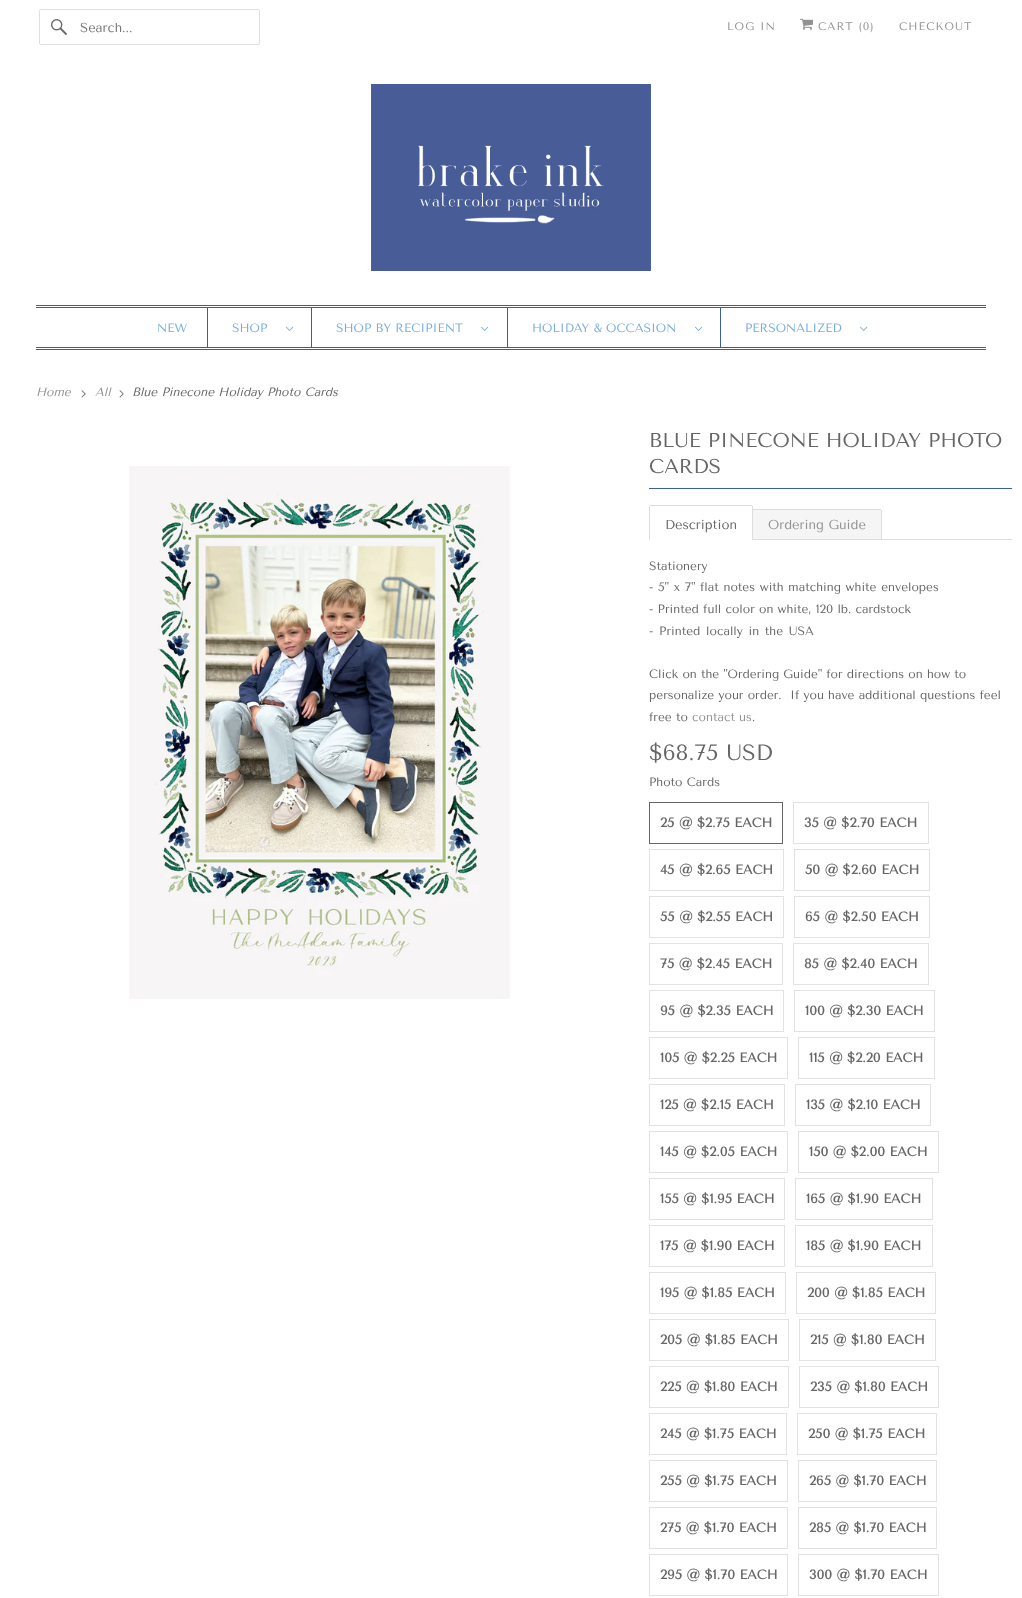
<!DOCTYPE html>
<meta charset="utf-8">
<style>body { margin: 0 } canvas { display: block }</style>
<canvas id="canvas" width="1022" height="1598"></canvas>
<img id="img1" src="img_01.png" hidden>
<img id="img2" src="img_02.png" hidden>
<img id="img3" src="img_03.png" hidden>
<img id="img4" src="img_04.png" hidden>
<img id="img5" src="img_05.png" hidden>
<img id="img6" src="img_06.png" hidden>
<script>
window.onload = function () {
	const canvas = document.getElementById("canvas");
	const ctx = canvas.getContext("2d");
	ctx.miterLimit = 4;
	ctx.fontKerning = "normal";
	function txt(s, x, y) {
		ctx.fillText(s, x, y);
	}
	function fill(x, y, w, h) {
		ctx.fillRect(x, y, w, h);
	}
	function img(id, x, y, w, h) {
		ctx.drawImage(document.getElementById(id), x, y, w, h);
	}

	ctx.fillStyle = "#FFFFFF";
	fill(0, 0, 1022, 1598);
	ctx.beginPath();
	ctx.roundRect(39.5, 9.5, 220, 35, 1.5);
	ctx.strokeStyle = "#DFDFDF";
	ctx.stroke();
	img("img1", 51, 19, 16, 16);
	img("img2", 800, 18, 13, 12);
	img("img3", 371, 84, 280, 187);
	ctx.fillStyle = "#3A5E9E";
	fill(36, 305, 950, 1);
	fill(36, 307, 950, 1);
	fill(36, 347, 950, 1);
	fill(36, 349, 950, 1);
	fill(207, 308, 1, 39);
	fill(311, 308, 1, 39);
	img("img4", 286, 326, 8, 5);
	fill(507, 308, 1, 39);
	img("img4", 481, 326, 8, 5);
	fill(720, 308, 1, 39);
	img("img4", 695, 326, 8, 5);
	img("img4", 860, 326, 8, 5);
	img("img5", 81, 390, 5, 8);
	img("img5", 119, 390, 5, 8);
	img("img6", 129, 466, 381, 533);
	fill(649, 488, 363, 1);
	ctx.fillStyle = "#DDDDDD";
	fill(753, 539, 259, 1);
	fill(650, 505, 102, 1);
	fill(752, 509, 129, 1);
	fill(752, 506, 1, 34);
	fill(649, 506, 1, 34);
	ctx.fillStyle = "#F5F5F5";
	ctx.beginPath();
	ctx.roundRect(753, 510, 128, 29, [0, 1, 0, 0]);
	ctx.fill();
	ctx.fillStyle = "#DDDDDD";
	fill(881, 510, 1, 29);
	ctx.strokeStyle = "#666666";
	ctx.strokeRect(649.5, 802.5, 133, 41);
	ctx.strokeStyle = "#E2E2E2";
	ctx.strokeRect(793.5, 802.5, 135, 41);
	ctx.strokeRect(649.5, 849.5, 134, 41);
	ctx.strokeRect(794.5, 849.5, 135, 41);
	ctx.strokeRect(649.5, 896.5, 134, 41);
	ctx.strokeRect(794.5, 896.5, 135, 41);
	ctx.strokeRect(649.5, 943.5, 133, 41);
	ctx.strokeRect(793.5, 943.5, 135, 41);
	ctx.strokeRect(649.5, 990.5, 134, 41);
	ctx.strokeRect(794.5, 990.5, 140, 41);
	ctx.strokeRect(649.5, 1037.5, 138, 41);
	ctx.strokeRect(798.5, 1037.5, 136, 41);
	ctx.strokeRect(649.5, 1084.5, 135, 41);
	ctx.strokeRect(795.5, 1084.5, 135, 41);
	ctx.strokeRect(649.5, 1131.5, 138, 41);
	ctx.strokeRect(798.5, 1131.5, 140, 41);
	ctx.strokeRect(649.5, 1178.5, 135, 41);
	ctx.strokeRect(795.5, 1178.5, 137, 41);
	ctx.strokeRect(649.5, 1225.5, 135, 41);
	ctx.strokeRect(795.5, 1225.5, 137, 41);
	ctx.strokeRect(649.5, 1272.5, 136, 41);
	ctx.strokeRect(796.5, 1272.5, 139, 41);
	ctx.strokeRect(649.5, 1319.5, 139, 41);
	ctx.strokeRect(799.5, 1319.5, 136, 41);
	ctx.strokeRect(649.5, 1366.5, 139, 41);
	ctx.strokeRect(799.5, 1366.5, 139, 41);
	ctx.strokeRect(649.5, 1413.5, 137, 41);
	ctx.strokeRect(797.5, 1413.5, 139, 41);
	ctx.strokeRect(649.5, 1460.5, 138, 41);
	ctx.strokeRect(798.5, 1460.5, 138, 41);
	ctx.strokeRect(649.5, 1507.5, 138, 41);
	ctx.strokeRect(798.5, 1507.5, 138, 41);
	ctx.strokeRect(649.5, 1554.5, 138, 41);
	ctx.strokeRect(798.5, 1554.5, 140, 41);
	ctx.font = "13px Tenor Sans";
	ctx.fillStyle = "#757575";
	txt("Search...", 80, 32);
	ctx.letterSpacing = "1px";
	ctx.font = "11px Tenor Sans";
	ctx.fillStyle = "#919191";
	txt("LOG IN", 727, 30);
	txt("CART (0)", 818, 30);
	txt("CHECKOUT", 899, 30);
	ctx.letterSpacing = "0px";
	ctx.font = "12px Tenor Sans";
	ctx.fillStyle = "#75ACE1";
	txt("NEW", 157, 332);
	txt("SHOP", 232, 332);
	txt("SHOP BY RECIPIENT", 336, 332);
	txt("HOLIDAY & OCCASION", 532, 332);
	txt("PERSONALIZED", 745, 332);
	ctx.font = "italic 12px Tenor Sans";
	ctx.fillStyle = "#919191";
	txt("Home", 36, 396);
	txt("All", 95, 396);
	ctx.fillStyle = "#666666";
	txt("Blue Pinecone Holiday Photo Cards", 132, 396);
	ctx.font = "20px Tenor Sans";
	txt("BLUE PINECONE HOLIDAY PHOTO", 649, 447);
	txt("CARDS", 649, 473);
	ctx.font = "13px Tenor Sans";
	txt("Description", 665, 529);
	ctx.fillStyle = "#919191";
	txt("Ordering Guide", 768, 529);
	ctx.font = "12px Tenor Sans";
	ctx.fillStyle = "#666666";
	txt("Stationery", 649, 570);
	ctx.wordSpacing = "0.5px";
	txt("- 5\" x 7\" flat notes with matching white envelopes", 649, 591);
	ctx.wordSpacing = "0px";
	txt("- Printed full color on white, 120 lb. cardstock", 649, 613);
	ctx.wordSpacing = "1.5px";
	txt("- Printed locally in the USA", 649, 635);
	ctx.wordSpacing = "0px";
	txt("Click on the \"Ordering Guide\" for directions on how to", 649, 678);
	txt("personalize your order.  If you have additional questions feel", 649, 699);
	txt("free to", 649, 721);
	ctx.fillStyle = "#919191";
	txt("contact us", 692, 721);
	ctx.fillStyle = "#666666";
	txt(".", 752, 721);
	ctx.font = "22px Tenor Sans";
	txt("$68.75 USD", 649, 760);
	ctx.font = "12px Tenor Sans";
	txt("Photo Cards", 649, 786);
	ctx.font = "bold 13px Tenor Sans";
	txt("25 @ $2.75 EACH", 660, 827);
	txt("35 @ $2.70 EACH", 804, 827);
	txt("45 @ $2.65 EACH", 660, 874);
	txt("50 @ $2.60 EACH", 805, 874);
	txt("55 @ $2.55 EACH", 660, 921);
	txt("65 @ $2.50 EACH", 805, 921);
	txt("75 @ $2.45 EACH", 660, 968);
	txt("85 @ $2.40 EACH", 804, 968);
	txt("95 @ $2.35 EACH", 660, 1015);
	txt("100 @ $2.30 EACH", 805, 1015);
	txt("105 @ $2.25 EACH", 660, 1062);
	txt("115 @ $2.20 EACH", 809, 1062);
	txt("125 @ $2.15 EACH", 660, 1109);
	txt("135 @ $2.10 EACH", 806, 1109);
	txt("145 @ $2.05 EACH", 660, 1156);
	txt("150 @ $2.00 EACH", 809, 1156);
	txt("155 @ $1.95 EACH", 660, 1203);
	txt("165 @ $1.90 EACH", 806, 1203);
	txt("175 @ $1.90 EACH", 660, 1250);
	txt("185 @ $1.90 EACH", 806, 1250);
	txt("195 @ $1.85 EACH", 660, 1297);
	txt("200 @ $1.85 EACH", 807, 1297);
	txt("205 @ $1.85 EACH", 660, 1344);
	txt("215 @ $1.80 EACH", 810, 1344);
	txt("225 @ $1.80 EACH", 660, 1391);
	txt("235 @ $1.80 EACH", 810, 1391);
	txt("245 @ $1.75 EACH", 660, 1438);
	txt("250 @ $1.75 EACH", 808, 1438);
	txt("255 @ $1.75 EACH", 660, 1485);
	txt("265 @ $1.70 EACH", 809, 1485);
	txt("275 @ $1.70 EACH", 660, 1532);
	txt("285 @ $1.70 EACH", 809, 1532);
	txt("295 @ $1.70 EACH", 660, 1579);
	txt("300 @ $1.70 EACH", 809, 1579);
};
</script>
